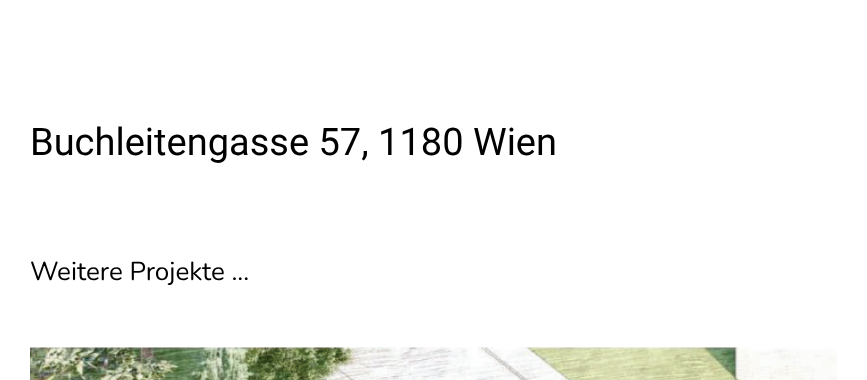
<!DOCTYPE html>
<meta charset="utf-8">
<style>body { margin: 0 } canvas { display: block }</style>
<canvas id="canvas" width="867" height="380"></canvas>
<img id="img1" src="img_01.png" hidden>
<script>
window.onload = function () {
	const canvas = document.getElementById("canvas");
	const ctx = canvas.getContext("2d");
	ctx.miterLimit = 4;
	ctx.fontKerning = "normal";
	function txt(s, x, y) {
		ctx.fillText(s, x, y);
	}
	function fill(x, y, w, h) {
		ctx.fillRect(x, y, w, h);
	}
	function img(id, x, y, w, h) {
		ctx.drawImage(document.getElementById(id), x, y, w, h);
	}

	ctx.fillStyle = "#FFFFFF";
	fill(0, 0, 867, 380);
	img("img1", 30, 347, 807, 33);
	ctx.font = "38px Roboto";
	ctx.fillStyle = "#000000";
	txt("Buchleitengasse 57, 1180 Wien", 30, 155);
	ctx.font = "26px Nunito";
	txt("Weitere Projekte ...", 30, 280);
};
</script>
